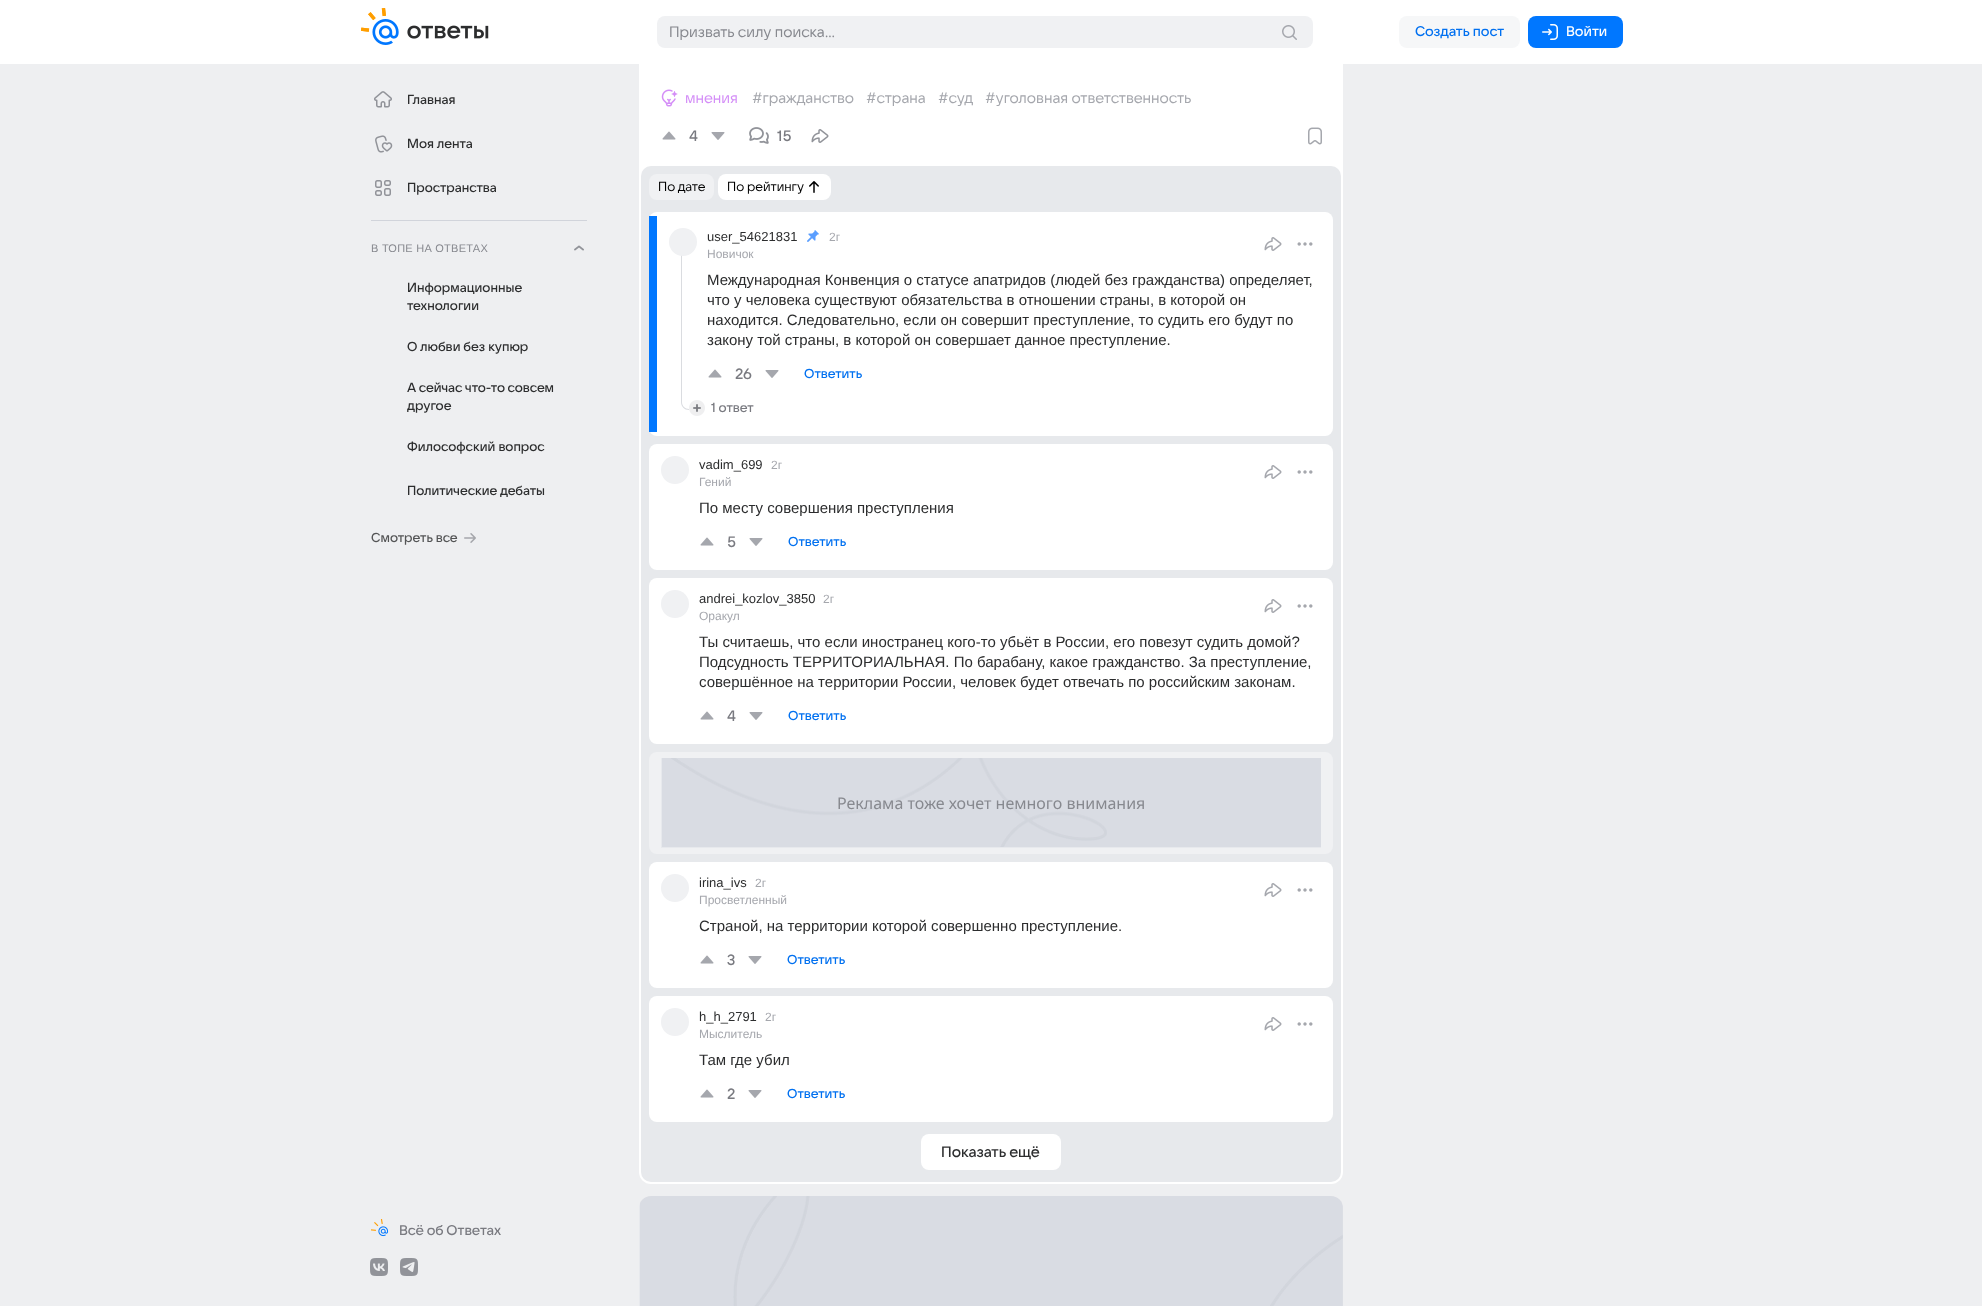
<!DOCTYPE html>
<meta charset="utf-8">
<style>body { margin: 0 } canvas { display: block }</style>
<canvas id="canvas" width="1982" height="1306"></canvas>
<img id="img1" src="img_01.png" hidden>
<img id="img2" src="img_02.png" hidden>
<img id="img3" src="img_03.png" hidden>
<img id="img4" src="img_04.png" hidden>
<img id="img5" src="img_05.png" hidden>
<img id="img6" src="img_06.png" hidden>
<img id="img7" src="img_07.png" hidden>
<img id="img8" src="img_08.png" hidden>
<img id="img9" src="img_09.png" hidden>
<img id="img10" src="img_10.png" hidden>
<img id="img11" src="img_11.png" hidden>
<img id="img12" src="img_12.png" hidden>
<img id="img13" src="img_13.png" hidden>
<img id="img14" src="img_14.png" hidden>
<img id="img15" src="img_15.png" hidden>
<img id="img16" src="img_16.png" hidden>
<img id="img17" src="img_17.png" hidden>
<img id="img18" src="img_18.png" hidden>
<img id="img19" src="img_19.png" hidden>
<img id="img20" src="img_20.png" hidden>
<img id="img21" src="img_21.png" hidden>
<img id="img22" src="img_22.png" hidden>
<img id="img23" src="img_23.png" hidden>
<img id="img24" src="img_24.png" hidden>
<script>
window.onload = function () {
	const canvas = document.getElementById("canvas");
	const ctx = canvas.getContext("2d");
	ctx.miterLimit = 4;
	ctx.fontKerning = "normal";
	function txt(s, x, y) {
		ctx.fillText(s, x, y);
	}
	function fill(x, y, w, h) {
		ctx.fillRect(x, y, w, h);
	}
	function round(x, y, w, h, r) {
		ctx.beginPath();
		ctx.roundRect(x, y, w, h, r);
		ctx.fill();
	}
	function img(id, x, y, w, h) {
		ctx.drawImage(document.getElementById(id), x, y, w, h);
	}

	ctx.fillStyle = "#EEEFF1";
	fill(0, 0, 1982, 1306);
	ctx.fillStyle = "#FFFFFF";
	round(639, -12, 704, 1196, 12);
	fill(0, 0, 1982, 64);
	img("img1", 361, 8, 128, 37);
	ctx.fillStyle = "#F0F1F3";
	round(657, 16, 656, 32, 8);
	img("img2", 1282, 25, 15, 15);
	ctx.fillStyle = "#F6F7F8";
	round(1399, 16, 121, 32, 8);
	ctx.fillStyle = "#0077FF";
	round(1528, 16, 95, 32, 8);
	img("img3", 1542, 24, 16, 16);
	img("img4", 374, 91, 18, 17);
	img("img5", 375, 135, 18, 18);
	img("img6", 375, 180, 16, 16);
	ctx.fillStyle = "#D1D4DB";
	fill(371, 220, 216, 1);
	img("img7", 574, 245, 10, 6);
	img("img8", 464, 533, 12, 10);
	img("img9", 371, 1219, 18, 18);
	img("img10", 370, 1258, 18, 18);
	img("img11", 400, 1258, 18, 18);
	img("img12", 661, 89, 17, 18);
	img("img13", 662, 131, 14, 9);
	img("img14", 711, 132, 14, 8);
	img("img15", 749, 127, 20, 17);
	img("img16", 811, 129, 18, 14);
	img("img17", 1308, 127, 14, 18);
	ctx.fillStyle = "#E7E9EC";
	round(641, 166, 700, 1016, 10);
	ctx.fillStyle = "#F0F1F3";
	round(649, 174, 65, 26, 8);
	ctx.fillStyle = "#FFFFFF";
	round(718, 174, 113, 26, 8);
	img("img18", 809, 181, 10, 12);
	round(649, 212, 684, 224, 8);
	ctx.fillStyle = "#0077FF";
	fill(649, 216, 8, 216);
	ctx.fillStyle = "#DADCE0";
	fill(681, 255, 1, 123);
	ctx.fillStyle = "#F0F1F3";
	ctx.beginPath();
	ctx.arc(683, 242, 14, 0, Math.PI * 2);
	ctx.fill();
	img("img19", 807, 230, 12, 12);
	img("img20", 1264, 237, 18, 14);
	img("img21", 1297, 242, 16, 4);
	img("img13", 708, 369, 14, 9);
	img("img14", 765, 370, 14, 8);
	ctx.fillStyle = "#DADCE0";
	ctx.beginPath();
	ctx.moveTo(681, 378);
	ctx.lineTo(689, 378);
	ctx.lineTo(689, 410);
	ctx.bezierCurveTo(684.5, 410, 681, 406.5, 681, 402);
	ctx.closePath();
	ctx.moveTo(682, 378);
	ctx.lineTo(689, 378);
	ctx.lineTo(689, 409);
	ctx.bezierCurveTo(685, 409, 682, 406, 682, 402);
	ctx.closePath();
	ctx.fill("evenodd");
	img("img22", 689, 400, 16, 16);
	ctx.fillStyle = "#FFFFFF";
	round(649, 444, 684, 126, 8);
	ctx.fillStyle = "#F0F1F3";
	ctx.beginPath();
	ctx.arc(675, 470, 14, 0, Math.PI * 2);
	ctx.fill();
	img("img20", 1264, 465, 18, 14);
	img("img21", 1297, 470, 16, 4);
	img("img13", 700, 537, 14, 9);
	img("img14", 749, 538, 14, 8);
	ctx.fillStyle = "#FFFFFF";
	round(649, 578, 684, 166, 8);
	ctx.fillStyle = "#F0F1F3";
	ctx.beginPath();
	ctx.arc(675, 604, 14, 0, Math.PI * 2);
	ctx.fill();
	img("img20", 1264, 599, 18, 14);
	img("img21", 1297, 604, 16, 4);
	img("img13", 700, 711, 14, 9);
	img("img14", 749, 712, 14, 8);
	round(649, 752, 684, 102, 8);
	ctx.fillStyle = "#E7E9ED";
	fill(661, 758, 660, 90);
	img("img23", 662, 758, 659, 89);
	ctx.fillStyle = "#FFFFFF";
	round(649, 862, 684, 126, 8);
	ctx.fillStyle = "#F0F1F3";
	ctx.beginPath();
	ctx.arc(675, 888, 14, 0, Math.PI * 2);
	ctx.fill();
	img("img20", 1264, 883, 18, 14);
	img("img21", 1297, 888, 16, 4);
	img("img13", 700, 955, 14, 9);
	img("img14", 748, 956, 14, 8);
	ctx.fillStyle = "#FFFFFF";
	round(649, 996, 684, 126, 8);
	ctx.fillStyle = "#F0F1F3";
	ctx.beginPath();
	ctx.arc(675, 1022, 14, 0, Math.PI * 2);
	ctx.fill();
	img("img20", 1264, 1017, 18, 14);
	img("img21", 1297, 1022, 16, 4);
	img("img13", 700, 1089, 14, 9);
	img("img14", 748, 1090, 14, 8);
	ctx.fillStyle = "#FFFFFF";
	round(921, 1134, 140, 36, 8);
	ctx.fillStyle = "#E7E9ED";
	round(639, 1196, 704, 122, 12);
	img("img24", 640, 1196, 703, 110);
	ctx.font = "15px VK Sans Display";
	ctx.fillStyle = "#87898F";
	txt("Призвать силу поиска...", 669, 37);
	ctx.font = "500 14px VK Sans Display";
	ctx.fillStyle = "#0070F0";
	txt("Создать пост", 1415, 36);
	ctx.fillStyle = "#FFFFFF";
	txt("Войти", 1566, 36);
	ctx.font = "500 13px VK Sans Display";
	ctx.fillStyle = "#2C2D2E";
	txt("Главная", 407, 104);
	txt("Моя лента", 407, 148);
	txt("Пространства", 407, 192);
	ctx.letterSpacing = "0.25px";
	ctx.font = "11px Liberation Sans";
	ctx.fillStyle = "#87898F";
	txt("В ТОПЕ НА ОТВЕТАХ", 371, 252);
	ctx.letterSpacing = "0px";
	ctx.font = "500 13px VK Sans Display";
	ctx.fillStyle = "#2C2D2E";
	txt("Информационные", 407, 292);
	txt("технологии", 407, 310);
	txt("О любви без купюр", 407, 351);
	txt("А сейчас что-то совсем", 407, 392);
	txt("другое", 407, 410);
	txt("Философский вопрос", 407, 451);
	txt("Политические дебаты", 407, 495);
	ctx.fillStyle = "#535455";
	txt("Смотреть все", 371, 542);
	ctx.font = "500 14px VK Sans Display";
	ctx.fillStyle = "#797A80";
	txt("Всё об Ответах", 399, 1235);
	ctx.font = "15px VK Sans Display";
	ctx.fillStyle = "#D48EF7";
	txt("мнения", 685, 103);
	ctx.fillStyle = "#A5A7AD";
	txt("#гражданство", 752, 103);
	txt("#страна", 866, 103);
	txt("#суд", 938, 103);
	txt("#уголовная ответственность", 985, 103);
	ctx.font = "500 15px VK Sans Display";
	ctx.fillStyle = "#797A80";
	txt("4", 689, 141);
	txt("15", 777, 141);
	ctx.font = "13px VK Sans Display";
	ctx.fillStyle = "#000000";
	txt("По дате", 658, 191);
	txt("По рейтингу", 727, 191);
	ctx.font = "13px Liberation Sans";
	ctx.fillStyle = "#2C2D2E";
	txt("user_54621831", 707, 241);
	ctx.font = "12px Liberation Sans";
	ctx.fillStyle = "#A5A7AD";
	txt("Новичок", 707, 258);
	txt("2г", 829, 241);
	ctx.font = "15px Liberation Sans";
	ctx.fillStyle = "#2C2D2E";
	txt("Международная Конвенция о статусе апатридов (людей без гражданства) определяет,", 707, 285);
	txt("что у человека существуют обязательства в отношении страны, в которой он", 707, 305);
	txt("находится. Следовательно, если он совершит преступление, то судить его будут по", 707, 325);
	txt("закону той страны, в которой он совершает данное преступление.", 707, 345);
	ctx.font = "500 15px VK Sans Display";
	ctx.fillStyle = "#797A80";
	txt("26", 735, 379);
	ctx.font = "500 13px VK Sans Display";
	ctx.fillStyle = "#0070F0";
	txt("Ответить", 804, 378);
	ctx.fillStyle = "#797A80";
	txt("1 ответ", 711, 412);
	ctx.font = "13px Liberation Sans";
	ctx.fillStyle = "#2C2D2E";
	txt("vadim_699", 699, 469);
	ctx.font = "12px Liberation Sans";
	ctx.fillStyle = "#A5A7AD";
	txt("Гений", 699, 486);
	txt("2г", 771, 469);
	ctx.font = "15px Liberation Sans";
	ctx.fillStyle = "#2C2D2E";
	txt("По месту совершения преступления", 699, 513);
	ctx.font = "500 15px VK Sans Display";
	ctx.fillStyle = "#797A80";
	txt("5", 727, 547);
	ctx.font = "500 13px VK Sans Display";
	ctx.fillStyle = "#0070F0";
	txt("Ответить", 788, 546);
	ctx.font = "13px Liberation Sans";
	ctx.fillStyle = "#2C2D2E";
	txt("andrei_kozlov_3850", 699, 603);
	ctx.font = "12px Liberation Sans";
	ctx.fillStyle = "#A5A7AD";
	txt("Оракул", 699, 620);
	txt("2г", 823, 603);
	ctx.font = "15px Liberation Sans";
	ctx.fillStyle = "#2C2D2E";
	txt("Ты считаешь, что если иностранец кого-то убьёт в России, его повезут судить домой?", 699, 647);
	txt("Подсудность ТЕРРИТОРИАЛЬНАЯ. По барабану, какое гражданство. За преступление,", 699, 667);
	txt("совершённое на территории России, человек будет отвечать по российским законам.", 699, 687);
	ctx.font = "500 15px VK Sans Display";
	ctx.fillStyle = "#797A80";
	txt("4", 727, 721);
	ctx.font = "500 13px VK Sans Display";
	ctx.fillStyle = "#0070F0";
	txt("Ответить", 788, 720);
	ctx.font = "16px Noto Sans";
	ctx.fillStyle = "#87898F";
	txt("Реклама тоже хочет немного внимания", 837, 809);
	ctx.font = "13px Liberation Sans";
	ctx.fillStyle = "#2C2D2E";
	txt("irina_ivs", 699, 887);
	ctx.font = "12px Liberation Sans";
	ctx.fillStyle = "#A5A7AD";
	txt("Просветленный", 699, 904);
	txt("2г", 755, 887);
	ctx.font = "15px Liberation Sans";
	ctx.fillStyle = "#2C2D2E";
	txt("Страной, на территории которой совершенно преступление.", 699, 931);
	ctx.font = "500 15px VK Sans Display";
	ctx.fillStyle = "#797A80";
	txt("3", 727, 965);
	ctx.font = "500 13px VK Sans Display";
	ctx.fillStyle = "#0070F0";
	txt("Ответить", 787, 964);
	ctx.font = "13px Liberation Sans";
	ctx.fillStyle = "#2C2D2E";
	txt("h_h_2791", 699, 1021);
	ctx.font = "12px Liberation Sans";
	ctx.fillStyle = "#A5A7AD";
	txt("Мыслитель", 699, 1038);
	txt("2г", 765, 1021);
	ctx.font = "15px Liberation Sans";
	ctx.fillStyle = "#2C2D2E";
	txt("Там где убил", 699, 1065);
	ctx.font = "500 15px VK Sans Display";
	ctx.fillStyle = "#797A80";
	txt("2", 727, 1099);
	ctx.font = "500 13px VK Sans Display";
	ctx.fillStyle = "#0070F0";
	txt("Ответить", 787, 1098);
	ctx.font = "500 15px VK Sans Display";
	ctx.fillStyle = "#2C2D2E";
	txt("Показать ещё", 941, 1157);
};
</script>
